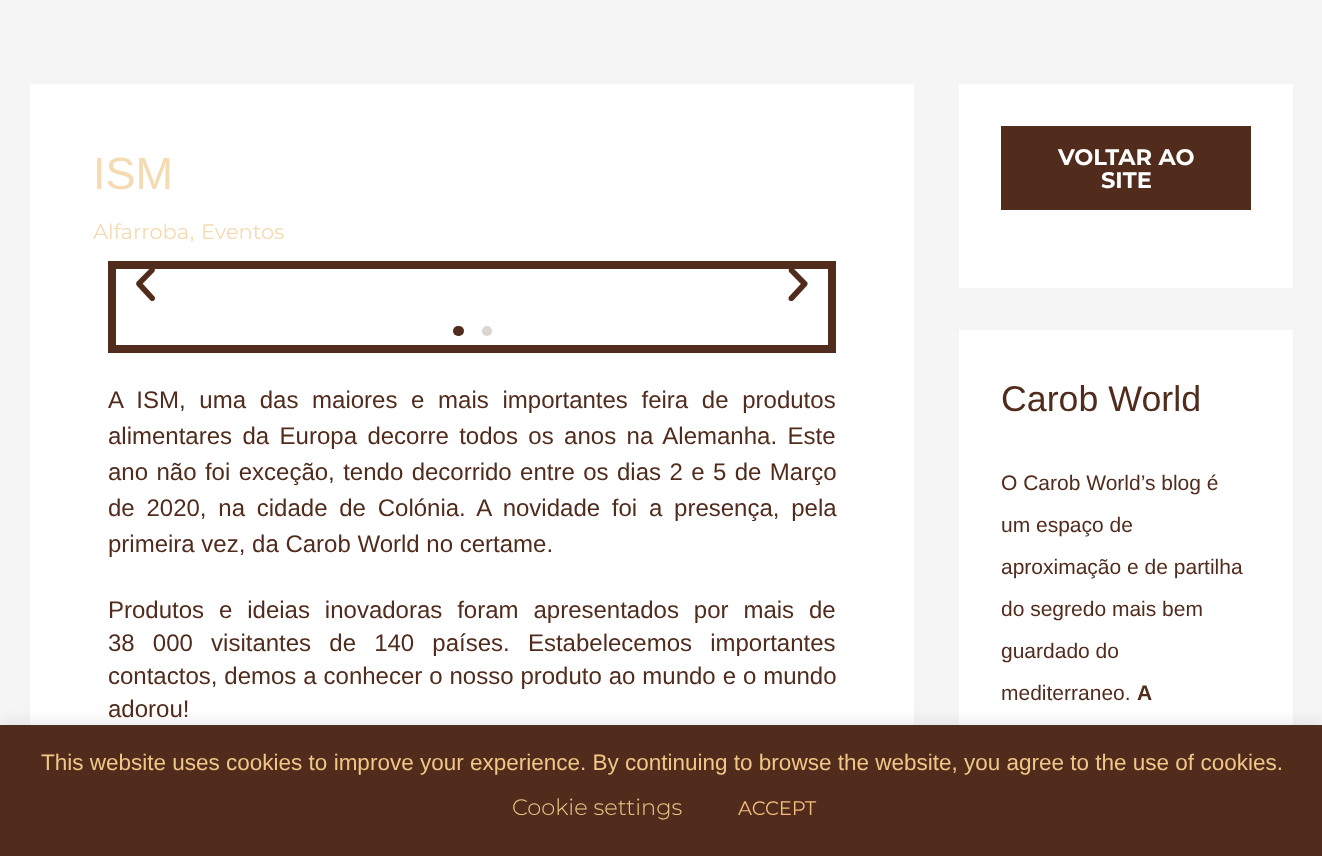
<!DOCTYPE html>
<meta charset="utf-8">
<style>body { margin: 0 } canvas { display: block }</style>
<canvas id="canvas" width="1322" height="856"></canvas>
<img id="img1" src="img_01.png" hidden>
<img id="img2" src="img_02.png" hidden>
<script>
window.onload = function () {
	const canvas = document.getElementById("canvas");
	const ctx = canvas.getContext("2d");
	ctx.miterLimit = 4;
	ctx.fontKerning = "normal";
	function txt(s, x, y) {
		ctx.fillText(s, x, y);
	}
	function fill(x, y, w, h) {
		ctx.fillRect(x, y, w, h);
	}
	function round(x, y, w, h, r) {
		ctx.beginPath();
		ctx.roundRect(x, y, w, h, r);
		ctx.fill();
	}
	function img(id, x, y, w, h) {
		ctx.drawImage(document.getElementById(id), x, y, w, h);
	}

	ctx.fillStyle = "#F5F5F5";
	fill(0, 0, 1322, 856);
	ctx.fillStyle = "#FFFFFF";
	fill(30, 84, 884, 641);
	ctx.strokeStyle = "#512C1D";
	ctx.lineWidth = 8;
	ctx.strokeRect(112, 265, 720, 84);
	img("img1", 136, 269, 20, 33);
	img("img2", 788, 269, 20, 33);
	ctx.fillStyle = "#512C1D";
	round(453, 326, 11, 10, 5);
	ctx.fillStyle = "#DCD5D2";
	ctx.beginPath();
	ctx.arc(487, 331, 5, 0, Math.PI * 2);
	ctx.fill();
	ctx.fillStyle = "#FFFFFF";
	fill(959, 84, 334, 204);
	ctx.fillStyle = "#512C1D";
	fill(1001, 126, 250, 84);
	ctx.fillStyle = "#FFFFFF";
	fill(959, 330, 334, 395);
	ctx.fillStyle = "rgba(172, 171, 171, 0.3)";
	ctx.filter = "blur(7.5px)";
	ctx.beginPath();
	ctx.rect(0, 723, 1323, 132);
	ctx.fill();
	ctx.filter = "none";
	ctx.fillStyle = "#512C1D";
	fill(0, 725, 1322, 131);
	ctx.font = "45px Liberation Sans";
	ctx.fillStyle = "#F4DBB2";
	txt("ISM", 93, 189);
	ctx.font = "21px Montserrat";
	txt("Alfarroba", 93, 239);
	ctx.font = "21px Liberation Sans";
	txt(",", 189, 239);
	ctx.font = "21px Montserrat";
	txt("Eventos", 201, 239);
	ctx.wordSpacing = "7px";
	ctx.font = "24px Liberation Sans";
	ctx.fillStyle = "#512C1D";
	txt("A ISM, uma das maiores e mais importantes feira de produtos", 108, 408);
	ctx.wordSpacing = "3.75px";
	txt("alimentares da Europa decorre todos os anos na Alemanha. Este", 108, 444);
	ctx.wordSpacing = "1.75px";
	txt("ano não foi exceção, tendo decorrido entre os dias 2 e 5 de Março", 108, 480);
	ctx.wordSpacing = "5.1px";
	txt("de 2020, na cidade de Colónia. A novidade foi a presença, pela", 108, 516);
	ctx.wordSpacing = "0px";
	txt("primeira vez, da Carob World no certame.", 108, 552);
	ctx.wordSpacing = "8.25px";
	txt("Produtos e ideias inovadoras foram apresentados por mais de", 108, 618);
	ctx.wordSpacing = "11.5px";
	txt("38 000 visitantes de 140 países. Estabelecemos importantes", 108, 651);
	ctx.wordSpacing = "0.25px";
	txt("contactos, demos a conhecer o nosso produto ao mundo e o mundo", 108, 684);
	ctx.wordSpacing = "0px";
	txt("adorou!", 108, 717);
	ctx.font = "bold 22.5px Montserrat";
	ctx.fillStyle = "#FFFFFF";
	txt("VOLTAR AO", 1058, 165);
	txt("SITE", 1101, 188);
	ctx.font = "35.75px Liberation Sans";
	ctx.fillStyle = "#512C1D";
	txt("Carob World", 1001, 411);
	ctx.font = "21px Liberation Sans";
	txt("O Carob World’s blog é", 1001, 490);
	txt("um espaço de", 1001, 532);
	txt("aproximação e de partilha", 1001, 574);
	txt("do segredo mais bem", 1001, 616);
	txt("guardado do", 1001, 658);
	txt("mediterraneo.", 1001, 700);
	ctx.font = "bold 21px Liberation Sans";
	txt("A", 1137, 700);
	ctx.font = "22.5px Liberation Sans";
	ctx.fillStyle = "#F0C786";
	txt("This website uses cookies to improve your experience. By continuing to browse the website, you agree to the use of cookies.", 41, 770);
	ctx.font = "300 22.5px Montserrat";
	txt("Cookie settings", 512, 815);
	ctx.font = "19.5px Montserrat";
	ctx.fillStyle = "#F2BC7C";
	txt("ACCEPT", 738, 815);
};
</script>
